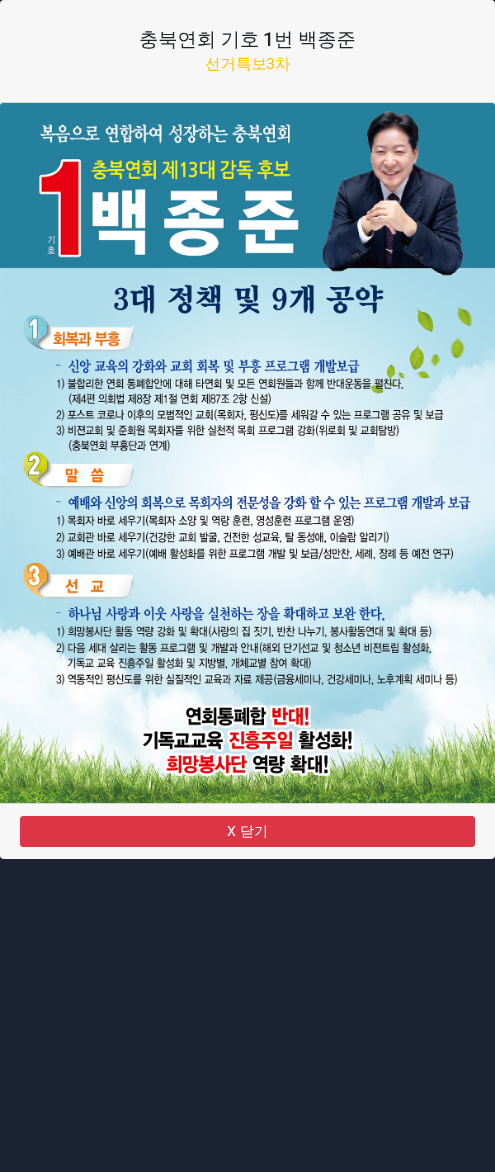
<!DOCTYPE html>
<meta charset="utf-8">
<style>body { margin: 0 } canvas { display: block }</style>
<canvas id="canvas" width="495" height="1172"></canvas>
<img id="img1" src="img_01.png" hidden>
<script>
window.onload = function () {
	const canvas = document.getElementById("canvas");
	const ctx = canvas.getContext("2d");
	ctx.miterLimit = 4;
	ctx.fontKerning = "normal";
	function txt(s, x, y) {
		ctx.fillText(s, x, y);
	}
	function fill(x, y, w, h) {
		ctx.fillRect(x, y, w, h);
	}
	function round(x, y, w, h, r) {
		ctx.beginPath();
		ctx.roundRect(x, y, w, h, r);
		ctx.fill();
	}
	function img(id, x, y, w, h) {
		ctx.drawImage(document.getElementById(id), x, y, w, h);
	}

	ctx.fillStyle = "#1B2233";
	fill(0, 0, 495, 1172);
	ctx.fillStyle = "#FFFFFF";
	round(0, 0, 495, 859, 4);
	ctx.fillStyle = "rgba(0, 0, 0, 0.03)";
	fill(0, 0, 495, 102);
	ctx.fillStyle = "#D8D8D8";
	fill(0, 102, 495, 1);
	img("img1", 0, 103, 495, 700);
	ctx.fillStyle = "rgba(0, 0, 0, 0.03)";
	fill(0, 804, 495, 55);
	ctx.fillStyle = "#D8D8D8";
	fill(0, 803, 495, 1);
	ctx.fillStyle = "#DC3545";
	ctx.beginPath();
	ctx.roundRect(20.5, 816.5, 454, 30, 2.5);
	ctx.fill();
	ctx.strokeStyle = "#DC3545";
	ctx.stroke();
	ctx.wordSpacing = "-1px";
	ctx.font = "500 19.25px WenQuanYi Zen Hei";
	ctx.fillStyle = "#212529";
	txt("충북연회 기호", 139, 46);
	ctx.wordSpacing = "0px";
	ctx.font = "500 19.25px Roboto";
	txt("1", 263, 46);
	ctx.wordSpacing = "-1px";
	ctx.font = "500 19.25px WenQuanYi Zen Hei";
	txt("번 백종준", 274, 46);
	ctx.wordSpacing = "0px";
	ctx.font = "500 15.5px WenQuanYi Zen Hei";
	ctx.fillStyle = "#FFC107";
	txt("선거특보", 205, 69);
	ctx.font = "15.5px Roboto";
	txt("3", 266, 69);
	ctx.font = "500 15.5px WenQuanYi Zen Hei";
	txt("차", 275, 69);
	ctx.font = "14px Roboto";
	ctx.fillStyle = "#FFFFFF";
	txt("X", 227, 836);
	ctx.font = "500 14px WenQuanYi Zen Hei";
	txt("닫기", 240, 836);
};
</script>
